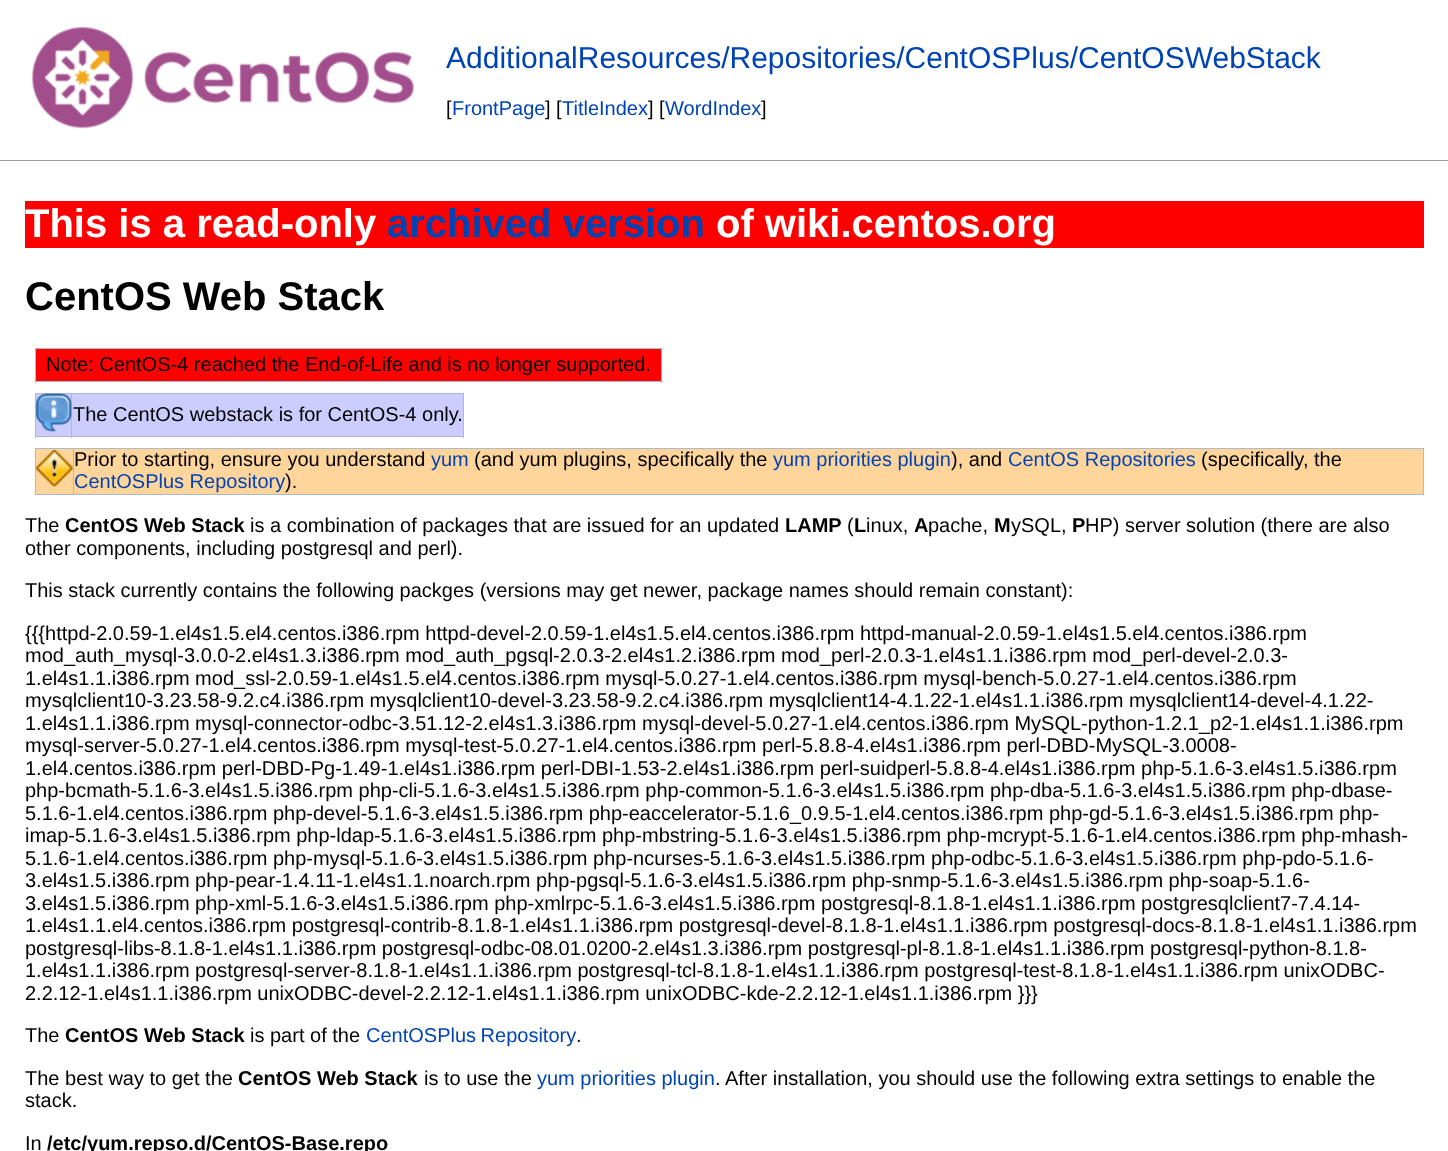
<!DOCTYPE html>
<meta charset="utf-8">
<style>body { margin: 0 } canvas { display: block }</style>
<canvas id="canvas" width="1448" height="1151"></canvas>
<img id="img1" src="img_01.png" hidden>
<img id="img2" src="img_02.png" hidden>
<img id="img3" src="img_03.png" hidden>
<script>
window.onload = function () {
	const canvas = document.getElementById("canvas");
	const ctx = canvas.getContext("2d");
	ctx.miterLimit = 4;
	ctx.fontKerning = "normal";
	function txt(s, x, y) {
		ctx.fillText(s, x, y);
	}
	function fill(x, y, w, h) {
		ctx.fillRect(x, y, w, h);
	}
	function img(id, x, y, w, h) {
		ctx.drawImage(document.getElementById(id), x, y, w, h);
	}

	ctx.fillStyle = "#FFFFFF";
	fill(0, 0, 1448, 1151);
	img("img1", 31, 26, 383, 103);
	ctx.fillStyle = "#9C9C9C";
	fill(0, 160, 1448, 1);
	ctx.fillStyle = "#FF0000";
	fill(25, 201, 1399, 47);
	fill(36, 349, 625, 32);
	ctx.fillStyle = "#ADB9CC";
	fill(35, 348, 628, 1);
	fill(661, 348, 1, 35);
	fill(35, 381, 628, 1);
	fill(35, 348, 1, 35);
	ctx.fillStyle = "#CCCCFF";
	fill(36, 394, 427, 42);
	ctx.fillStyle = "#ADB9CC";
	fill(71, 393, 393, 1);
	fill(463, 393, 1, 45);
	fill(71, 436, 393, 1);
	fill(71, 393, 1, 45);
	fill(35, 393, 38, 1);
	fill(35, 436, 38, 1);
	fill(35, 393, 1, 45);
	img("img2", 36, 393, 36, 39);
	ctx.fillStyle = "#FFD59B";
	fill(36, 449, 37, 45);
	ctx.fillStyle = "#ADB9CC";
	fill(73, 448, 1351, 1);
	fill(1423, 448, 1, 47);
	fill(73, 494, 1351, 1);
	fill(73, 448, 1, 47);
	fill(35, 448, 39, 1);
	fill(35, 494, 39, 1);
	fill(35, 448, 1, 47);
	img("img3", 36, 450, 37, 37);
	ctx.fillStyle = "#FFD59B";
	fill(74, 449, 1349, 45);
	ctx.font = "30px Liberation Sans";
	ctx.fillStyle = "#0044B3";
	txt("AdditionalResources/Repositories/CentOSPlus/CentOSWebStack", 446, 68);
	ctx.font = "20px Liberation Sans";
	ctx.fillStyle = "#000000";
	txt("[", 446, 115);
	ctx.fillStyle = "#0044B3";
	txt("FrontPage", 452, 115);
	ctx.fillStyle = "#000000";
	txt("] [", 545, 115);
	ctx.fillStyle = "#0044B3";
	txt("TitleIndex", 562, 115);
	ctx.fillStyle = "#000000";
	txt("] [", 648, 115);
	ctx.fillStyle = "#0044B3";
	txt("WordIndex", 665, 115);
	ctx.fillStyle = "#000000";
	txt("]", 761, 115);
	ctx.font = "bold 40px Liberation Sans";
	ctx.fillStyle = "#FFFFFF";
	txt("This is a read-only", 25, 237);
	ctx.fillStyle = "#0044B3";
	txt("archived version", 387, 237);
	ctx.fillStyle = "#FFFFFF";
	txt("of wiki.centos.org", 716, 237);
	ctx.fillStyle = "#000000";
	txt("CentOS Web Stack", 25, 310);
	ctx.font = "20px Liberation Sans";
	txt("Note: CentOS-4 reached the End-of-Life and is no longer supported.", 46, 371);
	txt("The CentOS webstack is for CentOS-4 only.", 73, 421);
	txt("Prior to starting, ensure you understand", 74, 466);
	ctx.fillStyle = "#0044B3";
	txt("yum", 431, 466);
	ctx.fillStyle = "#000000";
	txt("(and yum plugins, specifically the", 474, 466);
	ctx.fillStyle = "#0044B3";
	txt("yum priorities plugin", 773, 466);
	ctx.fillStyle = "#000000";
	txt("), and", 951, 466);
	ctx.fillStyle = "#0044B3";
	txt("CentOS Repositories", 1008, 466);
	ctx.fillStyle = "#000000";
	txt("(specifically, the", 1201, 466);
	ctx.fillStyle = "#0044B3";
	txt("CentOSPlus Repository", 74, 488);
	ctx.fillStyle = "#000000";
	txt(").", 285, 488);
	txt("The", 25, 532);
	ctx.font = "bold 20px Liberation Sans";
	txt("CentOS Web Stack", 65, 532);
	ctx.font = "20px Liberation Sans";
	txt("is a combination of packages that are issued for an updated", 250, 532);
	ctx.font = "bold 20px Liberation Sans";
	txt("LAMP", 785, 532);
	ctx.font = "20px Liberation Sans";
	txt("(", 847, 532);
	ctx.font = "bold 20px Liberation Sans";
	txt("L", 854, 532);
	ctx.font = "20px Liberation Sans";
	txt("inux,", 866, 532);
	ctx.font = "bold 20px Liberation Sans";
	txt("A", 914, 532);
	ctx.font = "20px Liberation Sans";
	txt("pache,", 928, 532);
	ctx.font = "bold 20px Liberation Sans";
	txt("M", 994, 532);
	ctx.font = "20px Liberation Sans";
	txt("ySQL,", 1011, 532);
	ctx.font = "bold 20px Liberation Sans";
	txt("P", 1072, 532);
	ctx.font = "20px Liberation Sans";
	txt("HP) server solution (there are also", 1085, 532);
	txt("other components, including postgresql and perl).", 25, 555);
	txt("This stack currently contains the following packges (versions may get newer, package names should remain constant):", 25, 597);
	txt("{{{httpd-2.0.59-1.el4s1.5.el4.centos.i386.rpm httpd-devel-2.0.59-1.el4s1.5.el4.centos.i386.rpm httpd-manual-2.0.59-1.el4s1.5.el4.centos.i386.rpm", 25, 640);
	txt("mod_auth_mysql-3.0.0-2.el4s1.3.i386.rpm mod_auth_pgsql-2.0.3-2.el4s1.2.i386.rpm mod_perl-2.0.3-1.el4s1.1.i386.rpm mod_perl-devel-2.0.3-", 25, 662);
	txt("1.el4s1.1.i386.rpm mod_ssl-2.0.59-1.el4s1.5.el4.centos.i386.rpm mysql-5.0.27-1.el4.centos.i386.rpm mysql-bench-5.0.27-1.el4.centos.i386.rpm", 25, 685);
	txt("mysqlclient10-3.23.58-9.2.c4.i386.rpm mysqlclient10-devel-3.23.58-9.2.c4.i386.rpm mysqlclient14-4.1.22-1.el4s1.1.i386.rpm mysqlclient14-devel-4.1.22-", 25, 707);
	txt("1.el4s1.1.i386.rpm mysql-connector-odbc-3.51.12-2.el4s1.3.i386.rpm mysql-devel-5.0.27-1.el4.centos.i386.rpm MySQL-python-1.2.1_p2-1.el4s1.1.i386.rpm", 25, 730);
	txt("mysql-server-5.0.27-1.el4.centos.i386.rpm mysql-test-5.0.27-1.el4.centos.i386.rpm perl-5.8.8-4.el4s1.i386.rpm perl-DBD-MySQL-3.0008-", 25, 752);
	txt("1.el4.centos.i386.rpm perl-DBD-Pg-1.49-1.el4s1.i386.rpm perl-DBI-1.53-2.el4s1.i386.rpm perl-suidperl-5.8.8-4.el4s1.i386.rpm php-5.1.6-3.el4s1.5.i386.rpm", 25, 775);
	txt("php-bcmath-5.1.6-3.el4s1.5.i386.rpm php-cli-5.1.6-3.el4s1.5.i386.rpm php-common-5.1.6-3.el4s1.5.i386.rpm php-dba-5.1.6-3.el4s1.5.i386.rpm php-dbase-", 25, 797);
	txt("5.1.6-1.el4.centos.i386.rpm php-devel-5.1.6-3.el4s1.5.i386.rpm php-eaccelerator-5.1.6_0.9.5-1.el4.centos.i386.rpm php-gd-5.1.6-3.el4s1.5.i386.rpm php-", 25, 820);
	txt("imap-5.1.6-3.el4s1.5.i386.rpm php-ldap-5.1.6-3.el4s1.5.i386.rpm php-mbstring-5.1.6-3.el4s1.5.i386.rpm php-mcrypt-5.1.6-1.el4.centos.i386.rpm php-mhash-", 25, 842);
	txt("5.1.6-1.el4.centos.i386.rpm php-mysql-5.1.6-3.el4s1.5.i386.rpm php-ncurses-5.1.6-3.el4s1.5.i386.rpm php-odbc-5.1.6-3.el4s1.5.i386.rpm php-pdo-5.1.6-", 25, 865);
	txt("3.el4s1.5.i386.rpm php-pear-1.4.11-1.el4s1.1.noarch.rpm php-pgsql-5.1.6-3.el4s1.5.i386.rpm php-snmp-5.1.6-3.el4s1.5.i386.rpm php-soap-5.1.6-", 25, 887);
	txt("3.el4s1.5.i386.rpm php-xml-5.1.6-3.el4s1.5.i386.rpm php-xmlrpc-5.1.6-3.el4s1.5.i386.rpm postgresql-8.1.8-1.el4s1.1.i386.rpm postgresqlclient7-7.4.14-", 25, 910);
	txt("1.el4s1.1.el4.centos.i386.rpm postgresql-contrib-8.1.8-1.el4s1.1.i386.rpm postgresql-devel-8.1.8-1.el4s1.1.i386.rpm postgresql-docs-8.1.8-1.el4s1.1.i386.rpm", 25, 932);
	txt("postgresql-libs-8.1.8-1.el4s1.1.i386.rpm postgresql-odbc-08.01.0200-2.el4s1.3.i386.rpm postgresql-pl-8.1.8-1.el4s1.1.i386.rpm postgresql-python-8.1.8-", 25, 955);
	txt("1.el4s1.1.i386.rpm postgresql-server-8.1.8-1.el4s1.1.i386.rpm postgresql-tcl-8.1.8-1.el4s1.1.i386.rpm postgresql-test-8.1.8-1.el4s1.1.i386.rpm unixODBC-", 25, 977);
	txt("2.2.12-1.el4s1.1.i386.rpm unixODBC-devel-2.2.12-1.el4s1.1.i386.rpm unixODBC-kde-2.2.12-1.el4s1.1.i386.rpm }}}", 25, 1000);
	txt("The", 25, 1042);
	ctx.font = "bold 20px Liberation Sans";
	txt("CentOS Web Stack", 65, 1042);
	ctx.font = "20px Liberation Sans";
	txt("is part of the", 250, 1042);
	ctx.wordSpacing = "-1px";
	ctx.fillStyle = "#0044B3";
	txt("CentOSPlus Repository", 366, 1042);
	ctx.wordSpacing = "0px";
	ctx.fillStyle = "#000000";
	txt(".", 576, 1042);
	txt("The best way to get the", 25, 1085);
	ctx.font = "bold 20px Liberation Sans";
	txt("CentOS Web Stack", 238, 1085);
	ctx.font = "20px Liberation Sans";
	txt("is to use the", 424, 1085);
	ctx.fillStyle = "#0044B3";
	txt("yum priorities plugin", 537, 1085);
	ctx.fillStyle = "#000000";
	txt(".", 715, 1085);
	txt("After installation, you should use the following extra settings to enable the", 725, 1085);
	txt("stack.", 25, 1107);
	txt("In", 25, 1150);
	ctx.font = "bold 20px Liberation Sans";
	txt("/etc/yum.repso.d/CentOS-Base.repo", 47, 1150);
};
</script>
